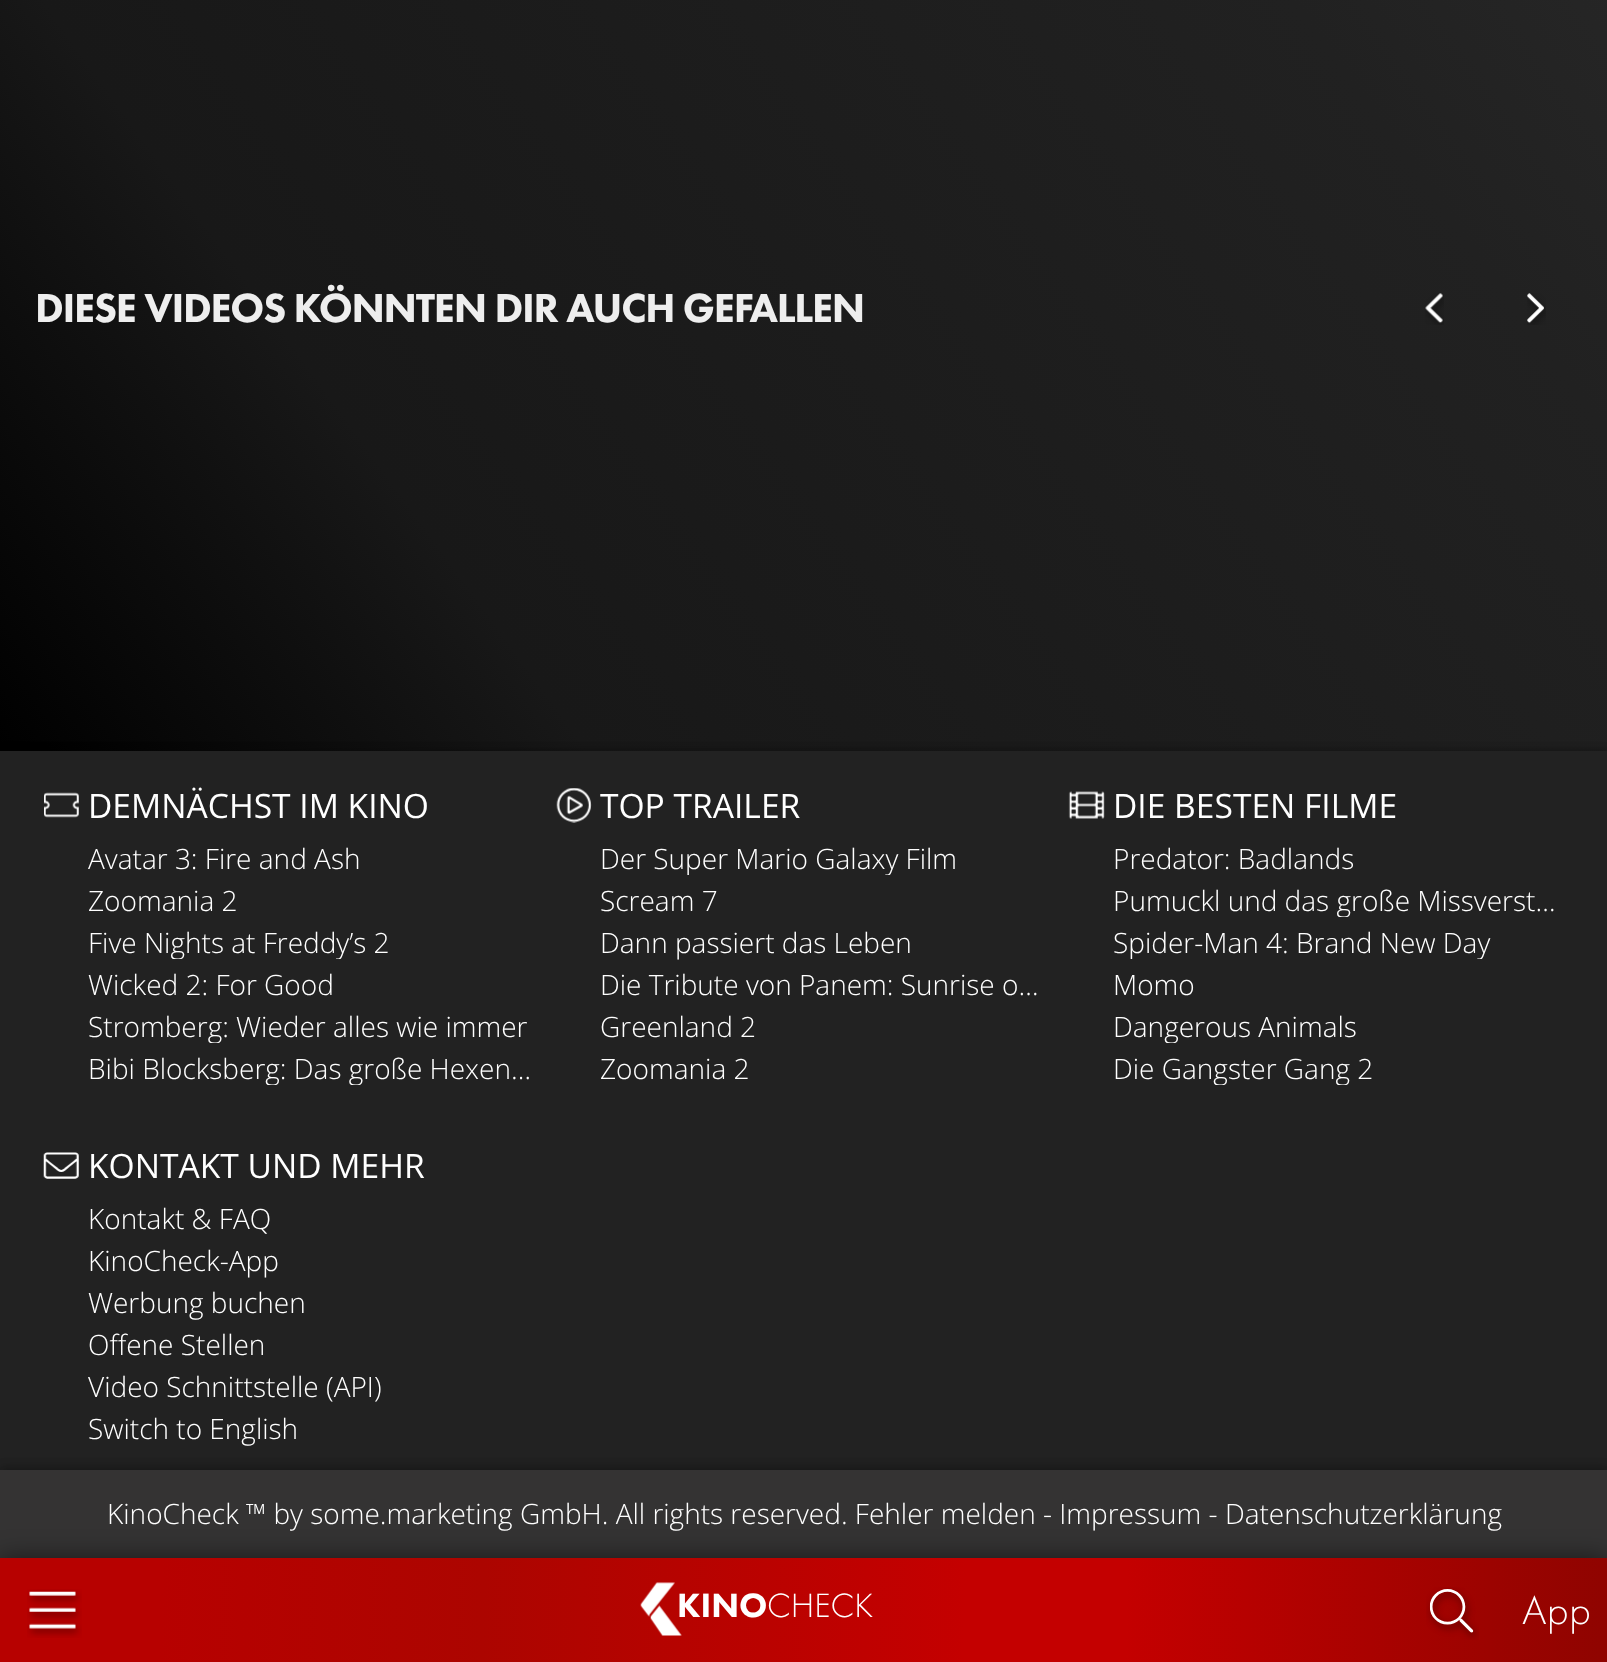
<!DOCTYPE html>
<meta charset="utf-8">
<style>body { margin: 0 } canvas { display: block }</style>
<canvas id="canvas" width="1607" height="1662"></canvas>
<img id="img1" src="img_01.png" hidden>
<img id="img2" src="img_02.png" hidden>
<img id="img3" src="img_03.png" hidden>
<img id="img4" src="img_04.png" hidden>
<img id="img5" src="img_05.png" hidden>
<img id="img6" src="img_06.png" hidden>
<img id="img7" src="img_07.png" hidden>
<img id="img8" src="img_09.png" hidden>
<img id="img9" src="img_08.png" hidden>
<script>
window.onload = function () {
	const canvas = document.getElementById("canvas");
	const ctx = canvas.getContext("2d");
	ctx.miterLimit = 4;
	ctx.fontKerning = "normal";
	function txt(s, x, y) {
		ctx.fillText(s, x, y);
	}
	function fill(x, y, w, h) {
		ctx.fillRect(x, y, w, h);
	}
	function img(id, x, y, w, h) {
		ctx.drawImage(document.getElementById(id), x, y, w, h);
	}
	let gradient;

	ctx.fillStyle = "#FFFFFF";
	fill(0, 0, 1607, 1662);
	gradient = ctx.createLinearGradient(-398, 203, 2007, -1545);
	gradient.addColorStop(0, "#000000");
	gradient.addColorStop(0.16, "#181818");
	gradient.addColorStop(0.5, "#212121");
	gradient.addColorStop(0.77, "#2F2F2F");
	gradient.addColorStop(1, "#000000");
	ctx.fillStyle = gradient;
	fill(0, 0, 1607, 751);
	img("img1", 1425, 293, 19, 32);
	img("img2", 1527, 293, 19, 32);
	ctx.fillStyle = "rgba(0, 0, 0, 0.18)";
	ctx.filter = "blur(3.5px)";
	ctx.beginPath();
	ctx.rect(0, 749, 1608, 912);
	ctx.fill();
	ctx.filter = "none";
	ctx.fillStyle = "rgba(0, 0, 0, 0.12)";
	ctx.filter = "blur(3.5px)";
	ctx.beginPath();
	ctx.rect(0, 749, 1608, 912);
	ctx.fill();
	ctx.filter = "none";
	ctx.fillStyle = "#222222";
	fill(0, 751, 1607, 719);
	img("img3", 44, 792, 35, 26);
	img("img4", 556, 788, 36, 35);
	img("img5", 1068, 791, 37, 28);
	img("img6", 43, 1152, 36, 27);
	ctx.fillStyle = "rgba(0, 0, 0, 0.18)";
	ctx.filter = "blur(5px)";
	ctx.beginPath();
	ctx.rect(0, 1467, 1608, 87);
	ctx.fill();
	ctx.filter = "none";
	ctx.fillStyle = "rgba(0, 0, 0, 0.12)";
	ctx.filter = "blur(5px)";
	ctx.beginPath();
	ctx.rect(0, 1467, 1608, 87);
	ctx.fill();
	ctx.filter = "none";
	ctx.fillStyle = "#343333";
	fill(0, 1470, 1607, 88);
	ctx.fillStyle = "rgba(0, 0, 0, 0.5)";
	ctx.filter = "blur(13px)";
	ctx.beginPath();
	ctx.rect(0, 1558, 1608, 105);
	ctx.fill();
	ctx.filter = "none";
	gradient = ctx.createLinearGradient(-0.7, 1596, 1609, 1624);
	gradient.addColorStop(0.1, "#B70100");
	gradient.addColorStop(0.3, "#AC0500");
	gradient.addColorStop(0.6, "#C40000");
	gradient.addColorStop(0.7, "#C40000");
	gradient.addColorStop(1, "#8F0400");
	ctx.fillStyle = gradient;
	fill(0, 1558, 1607, 104);
	img("img7", 27, 1589, 55, 49);
	img("img8", 1426, 1587, 53, 53);
	ctx.letterSpacing = "-1.25px";
	ctx.font = "42px 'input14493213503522'";
	ctx.fillStyle = "#EEEEEE";
	txt("DIESE VIDEOS KÖNNTEN DIR AUCH GEFALLEN", 35, 322);
	ctx.letterSpacing = "0px";
	ctx.font = "33.6px Open Sans";
	ctx.fillStyle = "#FFFFFF";
	txt("DEMNÄCHST IM KINO", 88, 818);
	ctx.font = "300 28px Open Sans";
	txt("Avatar 3: Fire and Ash", 88, 869);
	txt("Zoomania 2", 88, 911);
	ctx.save();
	ctx.beginPath();
	ctx.rect(88, 924, 301, 35);
	ctx.clip();
	txt("Five Nights at Freddy’s 2", 88, 953);
	ctx.restore();
	txt("Wicked 2: For Good", 88, 995);
	ctx.save();
	ctx.beginPath();
	ctx.rect(88, 1008, 439, 35);
	ctx.clip();
	txt("Stromberg: Wieder alles wie immer", 88, 1037);
	ctx.restore();
	ctx.save();
	ctx.beginPath();
	ctx.rect(88, 1050, 451, 35);
	ctx.clip();
	txt("Bibi Blocksberg: Das große Hexen…", 88, 1079);
	ctx.restore();
	ctx.font = "33.6px Open Sans";
	txt("TOP TRAILER", 600, 818);
	ctx.save();
	ctx.beginPath();
	ctx.rect(600, 840, 357, 35);
	ctx.clip();
	ctx.font = "300 28px Open Sans";
	txt("Der Super Mario Galaxy Film", 600, 869);
	ctx.restore();
	ctx.font = "300 28px Open Sans";
	txt("Scream 7", 600, 911);
	txt("Dann passiert das Leben", 600, 953);
	txt("Die Tribute von Panem: Sunrise o…", 600, 995);
	txt("Greenland 2", 600, 1037);
	txt("Zoomania 2", 600, 1079);
	ctx.font = "33.6px Open Sans";
	txt("DIE BESTEN FILME", 1113, 818);
	ctx.font = "300 28px Open Sans";
	txt("Predator: Badlands", 1113, 869);
	ctx.save();
	ctx.beginPath();
	ctx.rect(1113, 882, 452, 35);
	ctx.clip();
	txt("Pumuckl und das große Missverst…", 1113, 911);
	ctx.restore();
	ctx.save();
	ctx.beginPath();
	ctx.rect(1113, 924, 378, 35);
	ctx.clip();
	txt("Spider-Man 4: Brand New Day", 1113, 953);
	ctx.restore();
	txt("Momo", 1113, 995);
	ctx.save();
	ctx.beginPath();
	ctx.rect(1113, 1008, 243, 35);
	ctx.clip();
	txt("Dangerous Animals", 1113, 1037);
	ctx.restore();
	ctx.save();
	ctx.beginPath();
	ctx.rect(1113, 1050, 261, 35);
	ctx.clip();
	txt("Die Gangster Gang 2", 1113, 1079);
	ctx.restore();
	ctx.font = "33.6px Open Sans";
	txt("KONTAKT UND MEHR", 88, 1178);
	ctx.font = "300 28px Open Sans";
	txt("Kontakt & FAQ", 88, 1229);
	txt("KinoCheck-App", 88, 1271);
	txt("Werbung buchen", 88, 1313);
	txt("Offene Stellen", 88, 1355);
	txt("Video Schnittstelle (API)", 88, 1397);
	txt("Switch to English", 88, 1439);
	txt("KinoCheck ™ by some.marketing GmbH. All rights reserved. Fehler melden - Impressum - Datenschutzerklärung", 107, 1524);
	ctx.font = "35px 'input14493213503522'";
	txt("KINO", 677, 1617);
	img("img9", 640, 1582, 42, 54);
	ctx.font = "35px 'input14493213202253'";
	txt("CHECK", 767, 1617);
	ctx.letterSpacing = "0.5px";
	ctx.font = "42px 'input14493213202253'";
	txt("App", 1522, 1624);
};
</script>
